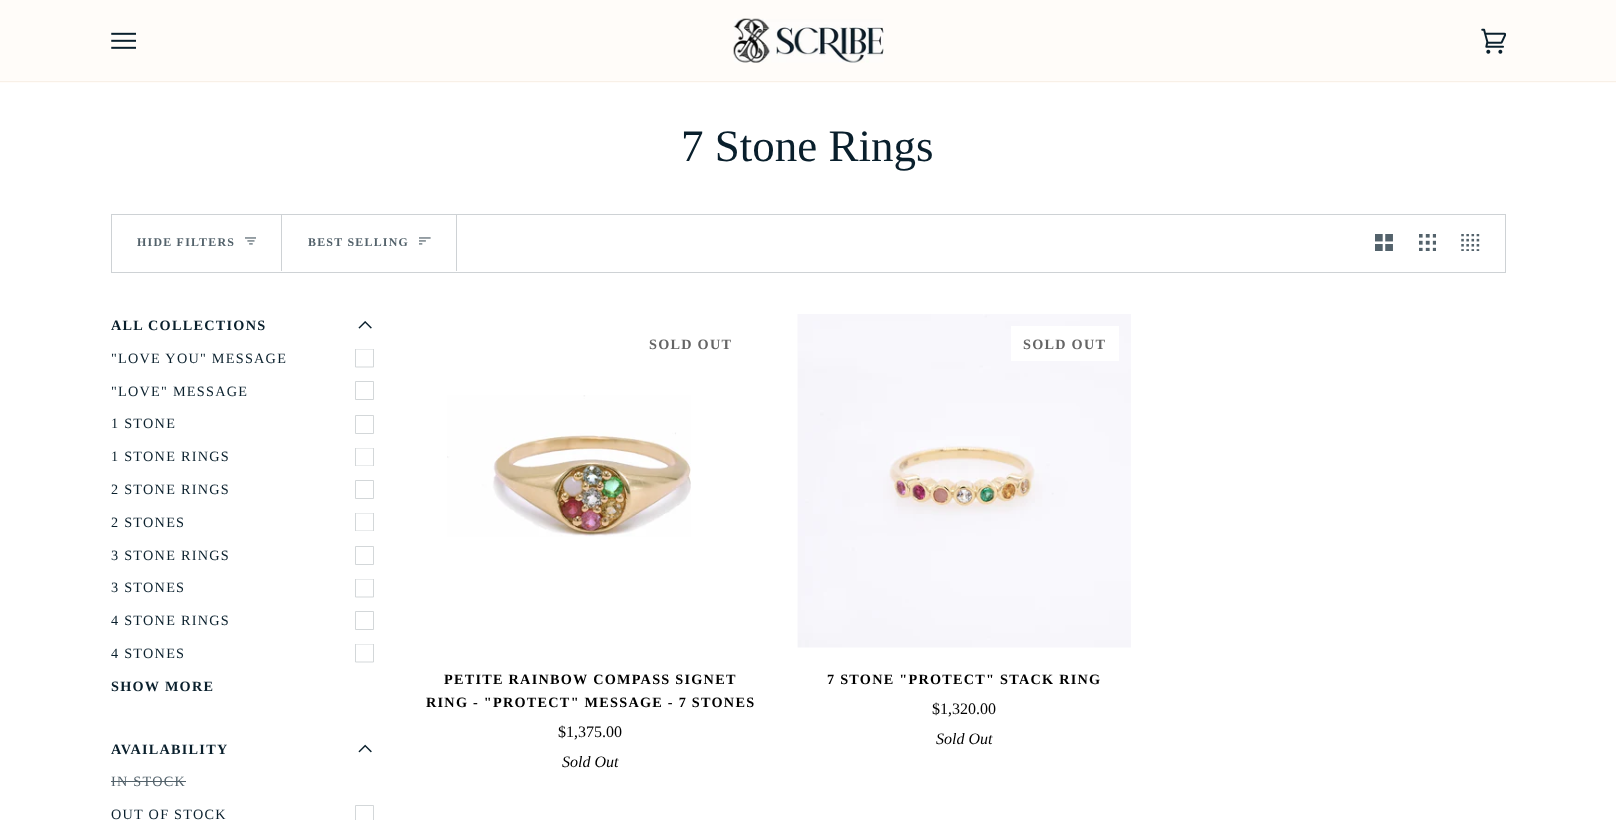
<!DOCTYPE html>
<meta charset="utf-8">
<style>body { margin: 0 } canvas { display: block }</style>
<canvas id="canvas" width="1616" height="820"></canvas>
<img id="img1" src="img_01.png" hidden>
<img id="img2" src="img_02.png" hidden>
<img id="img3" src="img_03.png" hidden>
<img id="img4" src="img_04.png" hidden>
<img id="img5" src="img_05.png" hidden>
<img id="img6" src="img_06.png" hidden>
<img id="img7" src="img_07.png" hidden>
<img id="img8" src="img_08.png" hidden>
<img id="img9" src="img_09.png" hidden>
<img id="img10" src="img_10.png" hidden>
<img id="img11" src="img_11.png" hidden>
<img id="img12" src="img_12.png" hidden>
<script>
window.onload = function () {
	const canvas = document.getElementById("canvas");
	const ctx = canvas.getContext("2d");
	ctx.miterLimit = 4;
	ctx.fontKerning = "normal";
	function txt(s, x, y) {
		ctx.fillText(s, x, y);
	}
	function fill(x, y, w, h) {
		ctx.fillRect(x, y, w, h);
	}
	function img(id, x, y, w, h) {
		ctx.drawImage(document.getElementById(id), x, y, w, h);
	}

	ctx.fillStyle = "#FFFFFF";
	fill(0, 0, 1616, 820);
	ctx.fillStyle = "#FFFCF9";
	fill(0, 0, 1616, 83);
	ctx.fillStyle = "#F8F0E7";
	fill(0, 81, 1616, 1);
	img("img1", 111, 32, 25, 17);
	img("img2", 733, 18, 151, 45);
	img("img3", 1481, 28, 25, 26);
	ctx.strokeStyle = "#CED2D5";
	ctx.strokeRect(111.5, 214.5, 1394, 58);
	ctx.fillStyle = "#CED2D5";
	fill(281, 215, 1, 56);
	img("img4", 245, 237, 11, 8);
	fill(456, 215, 1, 56);
	img("img5", 419, 237, 12, 8);
	img("img6", 1375, 234, 18, 17);
	img("img7", 1419, 234, 17, 17);
	img("img8", 1461, 234, 19, 17);
	img("img9", 358, 321, 14, 8);
	ctx.save();
	ctx.beginPath();
	ctx.rect(355, 349, 19, 19);
	ctx.clip();
	ctx.beginPath();
	ctx.moveTo(355.5, 349);
	ctx.lineTo(373.5, 349);
	ctx.lineTo(373.5, 367);
	ctx.lineTo(355.5, 367);
	ctx.closePath();
	ctx.lineWidth = 0.9;
	ctx.stroke();
	ctx.restore();
	ctx.beginPath();
	ctx.moveTo(355.5, 381.5);
	ctx.lineTo(373.5, 381.5);
	ctx.lineTo(373.5, 399.5);
	ctx.lineTo(355.5, 399.5);
	ctx.closePath();
	ctx.moveTo(355.5, 415.5);
	ctx.lineTo(373.5, 415.5);
	ctx.lineTo(373.5, 433.5);
	ctx.lineTo(355.5, 433.5);
	ctx.closePath();
	ctx.lineWidth = 0.9;
	ctx.stroke();
	ctx.save();
	ctx.beginPath();
	ctx.rect(355, 448, 19, 18);
	ctx.clip();
	ctx.beginPath();
	ctx.moveTo(355.5, 448);
	ctx.lineTo(373.5, 448);
	ctx.lineTo(373.5, 466);
	ctx.lineTo(355.5, 466);
	ctx.closePath();
	ctx.stroke();
	ctx.restore();
	ctx.beginPath();
	ctx.moveTo(355.5, 480.5);
	ctx.lineTo(373.5, 480.5);
	ctx.lineTo(373.5, 498.5);
	ctx.lineTo(355.5, 498.5);
	ctx.closePath();
	ctx.stroke();
	ctx.save();
	ctx.beginPath();
	ctx.rect(355, 513, 19, 18);
	ctx.clip();
	ctx.beginPath();
	ctx.moveTo(355.5, 513);
	ctx.lineTo(373.5, 513);
	ctx.lineTo(373.5, 531);
	ctx.lineTo(355.5, 531);
	ctx.closePath();
	ctx.stroke();
	ctx.restore();
	ctx.beginPath();
	ctx.moveTo(355.5, 546.5);
	ctx.lineTo(373.5, 546.5);
	ctx.lineTo(373.5, 564.5);
	ctx.lineTo(355.5, 564.5);
	ctx.closePath();
	ctx.stroke();
	ctx.save();
	ctx.beginPath();
	ctx.rect(355, 579, 19, 19);
	ctx.clip();
	ctx.beginPath();
	ctx.moveTo(355.5, 579);
	ctx.lineTo(373.5, 579);
	ctx.lineTo(373.5, 597);
	ctx.lineTo(355.5, 597);
	ctx.closePath();
	ctx.stroke();
	ctx.restore();
	ctx.beginPath();
	ctx.moveTo(355.5, 611.5);
	ctx.lineTo(373.5, 611.5);
	ctx.lineTo(373.5, 629.5);
	ctx.lineTo(355.5, 629.5);
	ctx.closePath();
	ctx.stroke();
	ctx.save();
	ctx.beginPath();
	ctx.rect(355, 644, 19, 19);
	ctx.clip();
	ctx.beginPath();
	ctx.moveTo(355.5, 644);
	ctx.lineTo(373.5, 644);
	ctx.lineTo(373.5, 662);
	ctx.lineTo(355.5, 662);
	ctx.closePath();
	ctx.stroke();
	ctx.restore();
	img("img10", 358, 744, 14, 9);
	ctx.fillStyle = "#53626B";
	fill(111, 781, 75, 1);
	ctx.beginPath();
	ctx.moveTo(355.5, 805.5);
	ctx.lineTo(373.5, 805.5);
	ctx.lineTo(373.5, 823.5);
	ctx.lineTo(355.5, 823.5);
	ctx.closePath();
	ctx.stroke();
	img("img11", 447, 395, 244, 142);
	img("img12", 797, 314, 334, 334);
	ctx.fillStyle = "#FFFFFF";
	fill(1011, 326, 108, 35);
	ctx.font = "45px Liberation Serif";
	ctx.fillStyle = "#091F2C";
	txt("7 Stone Rings", 681, 161);
	ctx.letterSpacing = "1.25px";
	ctx.font = "bold 11.9px Liberation Serif";
	ctx.fillStyle = "#53626B";
	txt("HIDE FILTERS", 137, 246);
	txt("BEST SELLING", 308, 246);
	ctx.font = "bold 14.25px Liberation Serif";
	ctx.fillStyle = "#091F2C";
	txt("ALL COLLECTIONS", 111, 330);
	ctx.font = "14.25px Liberation Serif";
	txt("\"LOVE YOU\" MESSAGE", 111, 363);
	txt("\"LOVE\" MESSAGE", 111, 396);
	txt("1 STONE", 111, 428);
	txt("1 STONE RINGS", 111, 461);
	txt("2 STONE RINGS", 111, 494);
	txt("2 STONES", 111, 527);
	txt("3 STONE RINGS", 111, 560);
	txt("3 STONES", 111, 592);
	txt("4 STONE RINGS", 111, 625);
	txt("4 STONES", 111, 658);
	ctx.font = "bold 14.25px Liberation Serif";
	txt("SHOW MORE", 111, 691);
	txt("AVAILABILITY", 111, 754);
	ctx.font = "14.25px Liberation Serif";
	ctx.fillStyle = "#53626B";
	txt("IN STOCK", 111, 786);
	ctx.fillStyle = "#091F2C";
	txt("OUT OF STOCK", 111, 819);
	ctx.font = "bold 14.25px Liberation Serif";
	ctx.fillStyle = "#656565";
	txt("SOLD OUT", 649, 349);
	ctx.fillStyle = "#000000";
	txt("PETITE RAINBOW COMPASS SIGNET", 444, 684);
	txt("RING - \"PROTECT\" MESSAGE - 7 STONES", 426, 707);
	ctx.letterSpacing = "0px";
	ctx.font = "16px Liberation Serif";
	txt("$1,375.00", 558, 737);
	ctx.font = "italic 16px Liberation Serif";
	txt("Sold Out", 562, 767);
	ctx.letterSpacing = "1.25px";
	ctx.font = "bold 14.25px Liberation Serif";
	ctx.fillStyle = "#656565";
	txt("SOLD OUT", 1023, 349);
	ctx.fillStyle = "#000000";
	txt("7 STONE \"PROTECT\" STACK RING", 827, 684);
	ctx.letterSpacing = "0px";
	ctx.font = "16px Liberation Serif";
	txt("$1,320.00", 932, 714);
	ctx.font = "italic 16px Liberation Serif";
	txt("Sold Out", 936, 744);
};
</script>
